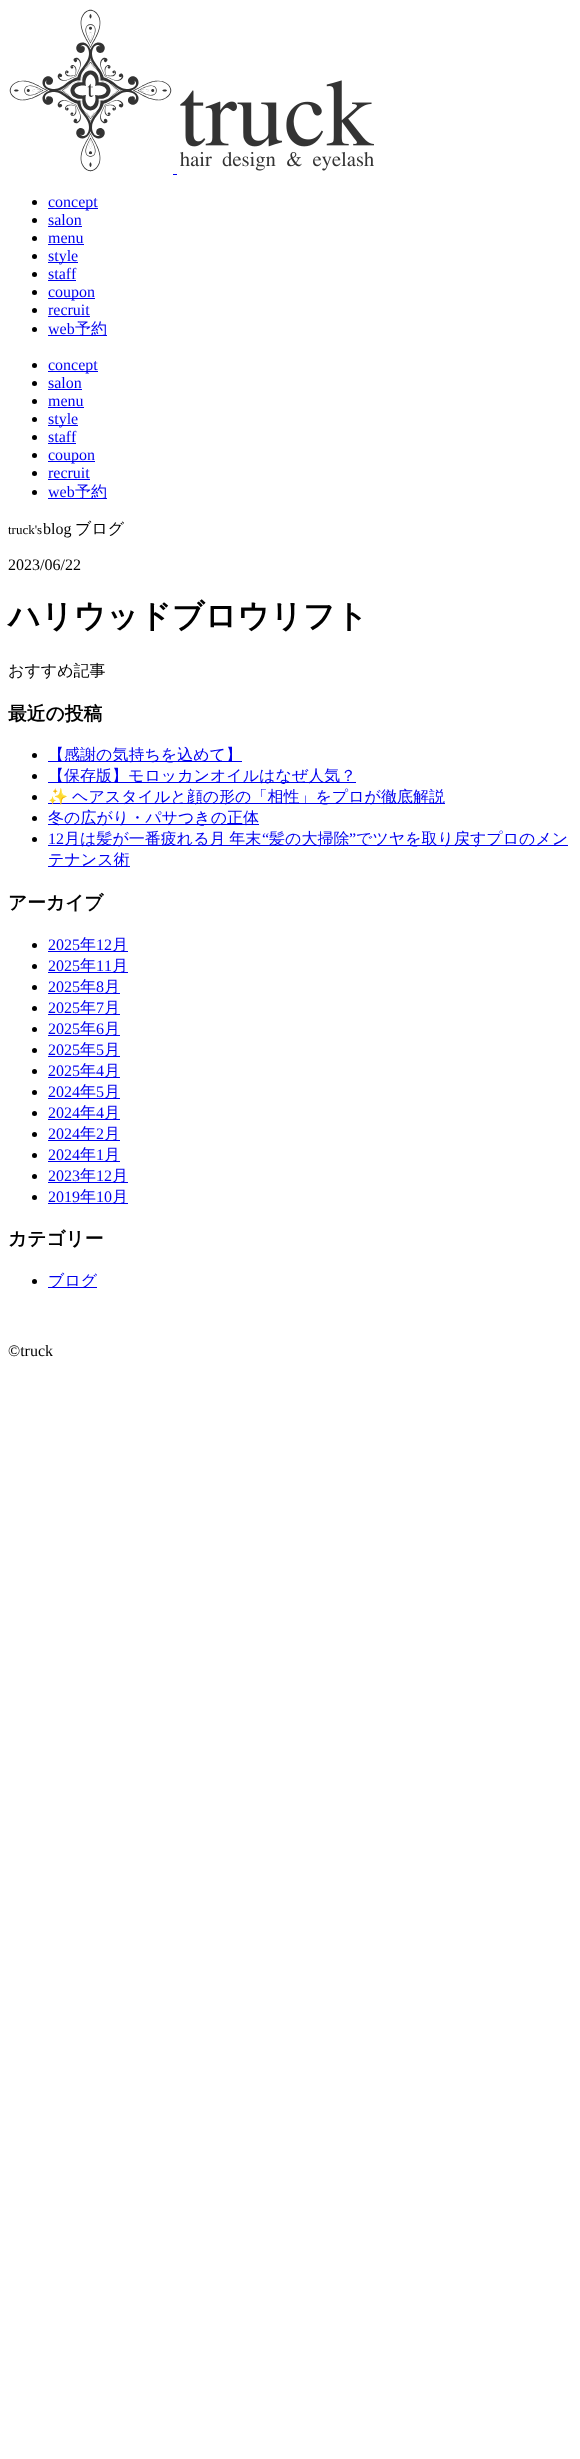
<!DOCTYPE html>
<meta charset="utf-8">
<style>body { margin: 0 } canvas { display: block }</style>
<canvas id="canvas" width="580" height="2459"></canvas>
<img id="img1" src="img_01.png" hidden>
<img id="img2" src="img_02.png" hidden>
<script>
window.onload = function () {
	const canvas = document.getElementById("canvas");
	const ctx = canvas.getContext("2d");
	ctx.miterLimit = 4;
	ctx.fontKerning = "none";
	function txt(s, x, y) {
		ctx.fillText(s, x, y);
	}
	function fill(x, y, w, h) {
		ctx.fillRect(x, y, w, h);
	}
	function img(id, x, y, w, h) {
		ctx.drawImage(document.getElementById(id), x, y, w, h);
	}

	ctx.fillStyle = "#FFFFFF";
	fill(0, 0, 580, 2459);
	img("img1", 9, 9, 163, 163);
	img("img2", 180, 80, 194, 91);
	ctx.fillStyle = "#0000EE";
	fill(173, 174, 4, 1);
	ctx.fillStyle = "#000000";
	ctx.beginPath();
	ctx.arc(34.5, 202.5, 2.5, 0, Math.PI * 2);
	ctx.fill();
	ctx.fillStyle = "#0000EE";
	fill(48, 208, 50, 1);
	ctx.fillStyle = "#000000";
	ctx.beginPath();
	ctx.arc(34.5, 220.5, 2.5, 0, Math.PI * 2);
	ctx.fill();
	ctx.fillStyle = "#0000EE";
	fill(48, 226, 34, 1);
	ctx.fillStyle = "#000000";
	ctx.beginPath();
	ctx.arc(34.5, 238.5, 2.5, 0, Math.PI * 2);
	ctx.fill();
	ctx.fillStyle = "#0000EE";
	fill(48, 244, 36, 1);
	ctx.fillStyle = "#000000";
	ctx.beginPath();
	ctx.arc(34.5, 256.5, 2.5, 0, Math.PI * 2);
	ctx.fill();
	ctx.fillStyle = "#0000EE";
	fill(48, 262, 30, 1);
	ctx.fillStyle = "#000000";
	ctx.beginPath();
	ctx.arc(34.5, 274.5, 2.5, 0, Math.PI * 2);
	ctx.fill();
	ctx.fillStyle = "#0000EE";
	fill(48, 280, 28, 1);
	ctx.fillStyle = "#000000";
	ctx.beginPath();
	ctx.arc(34.5, 292.5, 2.5, 0, Math.PI * 2);
	ctx.fill();
	ctx.fillStyle = "#0000EE";
	fill(48, 298, 47, 1);
	ctx.fillStyle = "#000000";
	ctx.beginPath();
	ctx.arc(34.5, 310.5, 2.5, 0, Math.PI * 2);
	ctx.fill();
	ctx.fillStyle = "#0000EE";
	fill(48, 316, 42, 1);
	ctx.fillStyle = "#000000";
	ctx.beginPath();
	ctx.arc(34.5, 329.5, 2.5, 0, Math.PI * 2);
	ctx.fill();
	ctx.fillStyle = "#0000EE";
	fill(48, 335, 59, 1);
	ctx.fillStyle = "#000000";
	ctx.beginPath();
	ctx.arc(34.5, 365.5, 2.5, 0, Math.PI * 2);
	ctx.fill();
	ctx.fillStyle = "#0000EE";
	fill(48, 371, 50, 1);
	ctx.fillStyle = "#000000";
	ctx.beginPath();
	ctx.arc(34.5, 383.5, 2.5, 0, Math.PI * 2);
	ctx.fill();
	ctx.fillStyle = "#0000EE";
	fill(48, 389, 34, 1);
	ctx.fillStyle = "#000000";
	ctx.beginPath();
	ctx.arc(34.5, 401.5, 2.5, 0, Math.PI * 2);
	ctx.fill();
	ctx.fillStyle = "#0000EE";
	fill(48, 407, 36, 1);
	ctx.fillStyle = "#000000";
	ctx.beginPath();
	ctx.arc(34.5, 419.5, 2.5, 0, Math.PI * 2);
	ctx.fill();
	ctx.fillStyle = "#0000EE";
	fill(48, 425, 30, 1);
	ctx.fillStyle = "#000000";
	ctx.beginPath();
	ctx.arc(34.5, 437.5, 2.5, 0, Math.PI * 2);
	ctx.fill();
	ctx.fillStyle = "#0000EE";
	fill(48, 443, 28, 1);
	ctx.fillStyle = "#000000";
	ctx.beginPath();
	ctx.arc(34.5, 455.5, 2.5, 0, Math.PI * 2);
	ctx.fill();
	ctx.fillStyle = "#0000EE";
	fill(48, 461, 47, 1);
	ctx.fillStyle = "#000000";
	ctx.beginPath();
	ctx.arc(34.5, 473.5, 2.5, 0, Math.PI * 2);
	ctx.fill();
	ctx.fillStyle = "#0000EE";
	fill(48, 479, 42, 1);
	ctx.fillStyle = "#000000";
	ctx.beginPath();
	ctx.arc(34.5, 492.5, 2.5, 0, Math.PI * 2);
	ctx.fill();
	ctx.fillStyle = "#0000EE";
	fill(48, 498, 59, 1);
	ctx.fillStyle = "#000000";
	ctx.beginPath();
	ctx.arc(34.5, 755.5, 2.5, 0, Math.PI * 2);
	ctx.fill();
	ctx.fillStyle = "#0000EE";
	fill(48, 761, 194, 1);
	ctx.fillStyle = "#000000";
	ctx.beginPath();
	ctx.arc(34.5, 776.5, 2.5, 0, Math.PI * 2);
	ctx.fill();
	ctx.fillStyle = "#0000EE";
	fill(48, 782, 308, 1);
	ctx.fillStyle = "#000000";
	ctx.beginPath();
	ctx.arc(34.5, 797.5, 2.5, 0, Math.PI * 2);
	ctx.fill();
	ctx.fillStyle = "#0000EE";
	fill(48, 803, 397, 1);
	ctx.fillStyle = "#000000";
	ctx.beginPath();
	ctx.arc(34.5, 818.5, 2.5, 0, Math.PI * 2);
	ctx.fill();
	ctx.fillStyle = "#0000EE";
	fill(48, 824, 211, 1);
	fill(48, 845, 520, 1);
	ctx.fillStyle = "#000000";
	ctx.beginPath();
	ctx.arc(34.5, 839.5, 2.5, 0, Math.PI * 2);
	ctx.fill();
	ctx.fillStyle = "#0000EE";
	fill(48, 866, 82, 1);
	ctx.fillStyle = "#000000";
	ctx.beginPath();
	ctx.arc(34.5, 945.5, 2.5, 0, Math.PI * 2);
	ctx.fill();
	ctx.fillStyle = "#0000EE";
	fill(48, 951, 80, 1);
	ctx.fillStyle = "#000000";
	ctx.beginPath();
	ctx.arc(34.5, 966.5, 2.5, 0, Math.PI * 2);
	ctx.fill();
	ctx.fillStyle = "#0000EE";
	fill(48, 972, 80, 1);
	ctx.fillStyle = "#000000";
	ctx.beginPath();
	ctx.arc(34.5, 987.5, 2.5, 0, Math.PI * 2);
	ctx.fill();
	ctx.fillStyle = "#0000EE";
	fill(48, 993, 72, 1);
	ctx.fillStyle = "#000000";
	ctx.beginPath();
	ctx.arc(34.5, 1008.5, 2.5, 0, Math.PI * 2);
	ctx.fill();
	ctx.fillStyle = "#0000EE";
	fill(48, 1014, 72, 1);
	ctx.fillStyle = "#000000";
	ctx.beginPath();
	ctx.arc(34.5, 1029.5, 2.5, 0, Math.PI * 2);
	ctx.fill();
	ctx.fillStyle = "#0000EE";
	fill(48, 1035, 72, 1);
	ctx.fillStyle = "#000000";
	ctx.beginPath();
	ctx.arc(34.5, 1050.5, 2.5, 0, Math.PI * 2);
	ctx.fill();
	ctx.fillStyle = "#0000EE";
	fill(48, 1056, 72, 1);
	ctx.fillStyle = "#000000";
	ctx.beginPath();
	ctx.arc(34.5, 1071.5, 2.5, 0, Math.PI * 2);
	ctx.fill();
	ctx.fillStyle = "#0000EE";
	fill(48, 1077, 72, 1);
	ctx.fillStyle = "#000000";
	ctx.beginPath();
	ctx.arc(34.5, 1092.5, 2.5, 0, Math.PI * 2);
	ctx.fill();
	ctx.fillStyle = "#0000EE";
	fill(48, 1098, 72, 1);
	ctx.fillStyle = "#000000";
	ctx.beginPath();
	ctx.arc(34.5, 1113.5, 2.5, 0, Math.PI * 2);
	ctx.fill();
	ctx.fillStyle = "#0000EE";
	fill(48, 1119, 72, 1);
	ctx.fillStyle = "#000000";
	ctx.beginPath();
	ctx.arc(34.5, 1134.5, 2.5, 0, Math.PI * 2);
	ctx.fill();
	ctx.fillStyle = "#0000EE";
	fill(48, 1140, 72, 1);
	ctx.fillStyle = "#000000";
	ctx.beginPath();
	ctx.arc(34.5, 1155.5, 2.5, 0, Math.PI * 2);
	ctx.fill();
	ctx.fillStyle = "#0000EE";
	fill(48, 1161, 72, 1);
	ctx.fillStyle = "#000000";
	ctx.beginPath();
	ctx.arc(34.5, 1176.5, 2.5, 0, Math.PI * 2);
	ctx.fill();
	ctx.fillStyle = "#0000EE";
	fill(48, 1182, 80, 1);
	ctx.fillStyle = "#000000";
	ctx.beginPath();
	ctx.arc(34.5, 1197.5, 2.5, 0, Math.PI * 2);
	ctx.fill();
	ctx.fillStyle = "#0000EE";
	fill(48, 1203, 80, 1);
	ctx.fillStyle = "#000000";
	ctx.beginPath();
	ctx.arc(34.5, 1281.5, 2.5, 0, Math.PI * 2);
	ctx.fill();
	ctx.fillStyle = "#0000EE";
	fill(48, 1287, 49, 1);
	ctx.font = "16px Liberation Serif";
	txt("concept", 48, 207);
	txt("salon", 48, 225);
	txt("menu", 48, 243);
	txt("style", 48, 261);
	txt("staff", 48, 279);
	txt("coupon", 48, 297);
	txt("recruit", 48, 315);
	txt("web", 48, 334);
	ctx.font = "500 16px WenQuanYi Zen Hei";
	txt("予約", 75, 334);
	ctx.font = "16px Liberation Serif";
	txt("concept", 48, 370);
	txt("salon", 48, 388);
	txt("menu", 48, 406);
	txt("style", 48, 424);
	txt("staff", 48, 442);
	txt("coupon", 48, 460);
	txt("recruit", 48, 478);
	txt("web", 48, 497);
	ctx.font = "500 16px WenQuanYi Zen Hei";
	txt("予約", 75, 497);
	ctx.font = "13px Liberation Serif";
	ctx.fillStyle = "#000000";
	txt("truck's", 8, 534);
	ctx.font = "16px Liberation Serif";
	txt("blog", 43, 534);
	ctx.font = "500 16px WenQuanYi Zen Hei";
	txt("ブログ", 75, 534);
	ctx.font = "16px Liberation Serif";
	txt("2023/06/22", 8, 570);
	ctx.font = "bold 32px WenQuanYi Zen Hei";
	txt("ハリウッドブロウリフト", 8, 627);
	ctx.font = "500 16px WenQuanYi Zen Hei";
	txt("おすすめ記事", 8, 676);
	ctx.font = "bold 18.75px WenQuanYi Zen Hei";
	txt("最近の投稿", 8, 720);
	ctx.font = "500 16px WenQuanYi Zen Hei";
	ctx.fillStyle = "#0000EE";
	txt("【感謝の気持ちを込めて】", 48, 760);
	txt("【保存版】モロッカンオイルはなぜ人気？", 48, 781);
	ctx.font = "16px Noto Color Emoji";
	txt("✨", 48, 802);
	ctx.font = "500 16px WenQuanYi Zen Hei";
	txt("ヘアスタイルと顔の形の「相性」をプロが徹底解説", 72, 802);
	txt("冬の広がり・パサつきの正体", 48, 823);
	ctx.font = "16px Liberation Serif";
	txt("12", 48, 844);
	ctx.wordSpacing = "-1px";
	ctx.font = "500 16px WenQuanYi Zen Hei";
	txt("月は髪が一番疲れる月 年末", 64, 844);
	ctx.wordSpacing = "0px";
	ctx.font = "16px Liberation Serif";
	txt("“", 262, 844);
	ctx.font = "500 16px WenQuanYi Zen Hei";
	txt("髪の大掃除", 269, 844);
	ctx.font = "16px Liberation Serif";
	txt("”", 349, 844);
	ctx.font = "500 16px WenQuanYi Zen Hei";
	txt("でツヤを取り戻すプロのメン", 356, 844);
	txt("テナンス術", 48, 865);
	ctx.font = "bold 18.75px WenQuanYi Zen Hei";
	ctx.fillStyle = "#000000";
	txt("アーカイブ", 8, 909);
	ctx.font = "16px Liberation Serif";
	ctx.fillStyle = "#0000EE";
	txt("2025", 48, 950);
	ctx.font = "500 16px WenQuanYi Zen Hei";
	txt("年", 80, 950);
	ctx.font = "16px Liberation Serif";
	txt("12", 96, 950);
	ctx.font = "500 16px WenQuanYi Zen Hei";
	txt("月", 112, 950);
	ctx.font = "16px Liberation Serif";
	txt("2025", 48, 971);
	ctx.font = "500 16px WenQuanYi Zen Hei";
	txt("年", 80, 971);
	ctx.font = "16px Liberation Serif";
	txt("11", 96, 971);
	ctx.font = "500 16px WenQuanYi Zen Hei";
	txt("月", 112, 971);
	ctx.font = "16px Liberation Serif";
	txt("2025", 48, 992);
	ctx.font = "500 16px WenQuanYi Zen Hei";
	txt("年", 80, 992);
	ctx.font = "16px Liberation Serif";
	txt("8", 96, 992);
	ctx.font = "500 16px WenQuanYi Zen Hei";
	txt("月", 104, 992);
	ctx.font = "16px Liberation Serif";
	txt("2025", 48, 1013);
	ctx.font = "500 16px WenQuanYi Zen Hei";
	txt("年", 80, 1013);
	ctx.font = "16px Liberation Serif";
	txt("7", 96, 1013);
	ctx.font = "500 16px WenQuanYi Zen Hei";
	txt("月", 104, 1013);
	ctx.font = "16px Liberation Serif";
	txt("2025", 48, 1034);
	ctx.font = "500 16px WenQuanYi Zen Hei";
	txt("年", 80, 1034);
	ctx.font = "16px Liberation Serif";
	txt("6", 96, 1034);
	ctx.font = "500 16px WenQuanYi Zen Hei";
	txt("月", 104, 1034);
	ctx.font = "16px Liberation Serif";
	txt("2025", 48, 1055);
	ctx.font = "500 16px WenQuanYi Zen Hei";
	txt("年", 80, 1055);
	ctx.font = "16px Liberation Serif";
	txt("5", 96, 1055);
	ctx.font = "500 16px WenQuanYi Zen Hei";
	txt("月", 104, 1055);
	ctx.font = "16px Liberation Serif";
	txt("2025", 48, 1076);
	ctx.font = "500 16px WenQuanYi Zen Hei";
	txt("年", 80, 1076);
	ctx.font = "16px Liberation Serif";
	txt("4", 96, 1076);
	ctx.font = "500 16px WenQuanYi Zen Hei";
	txt("月", 104, 1076);
	ctx.font = "16px Liberation Serif";
	txt("2024", 48, 1097);
	ctx.font = "500 16px WenQuanYi Zen Hei";
	txt("年", 80, 1097);
	ctx.font = "16px Liberation Serif";
	txt("5", 96, 1097);
	ctx.font = "500 16px WenQuanYi Zen Hei";
	txt("月", 104, 1097);
	ctx.font = "16px Liberation Serif";
	txt("2024", 48, 1118);
	ctx.font = "500 16px WenQuanYi Zen Hei";
	txt("年", 80, 1118);
	ctx.font = "16px Liberation Serif";
	txt("4", 96, 1118);
	ctx.font = "500 16px WenQuanYi Zen Hei";
	txt("月", 104, 1118);
	ctx.font = "16px Liberation Serif";
	txt("2024", 48, 1139);
	ctx.font = "500 16px WenQuanYi Zen Hei";
	txt("年", 80, 1139);
	ctx.font = "16px Liberation Serif";
	txt("2", 96, 1139);
	ctx.font = "500 16px WenQuanYi Zen Hei";
	txt("月", 104, 1139);
	ctx.font = "16px Liberation Serif";
	txt("2024", 48, 1160);
	ctx.font = "500 16px WenQuanYi Zen Hei";
	txt("年", 80, 1160);
	ctx.font = "16px Liberation Serif";
	txt("1", 96, 1160);
	ctx.font = "500 16px WenQuanYi Zen Hei";
	txt("月", 104, 1160);
	ctx.font = "16px Liberation Serif";
	txt("2023", 48, 1181);
	ctx.font = "500 16px WenQuanYi Zen Hei";
	txt("年", 80, 1181);
	ctx.font = "16px Liberation Serif";
	txt("12", 96, 1181);
	ctx.font = "500 16px WenQuanYi Zen Hei";
	txt("月", 112, 1181);
	ctx.font = "16px Liberation Serif";
	txt("2019", 48, 1202);
	ctx.font = "500 16px WenQuanYi Zen Hei";
	txt("年", 80, 1202);
	ctx.font = "16px Liberation Serif";
	txt("10", 96, 1202);
	ctx.font = "500 16px WenQuanYi Zen Hei";
	txt("月", 112, 1202);
	ctx.font = "bold 18.75px WenQuanYi Zen Hei";
	ctx.fillStyle = "#000000";
	txt("カテゴリー", 8, 1245);
	ctx.font = "500 16px WenQuanYi Zen Hei";
	ctx.fillStyle = "#0000EE";
	txt("ブログ", 48, 1286);
	ctx.font = "16px Liberation Serif";
	ctx.fillStyle = "#000000";
	txt("©truck", 8, 1356);
};
</script>
